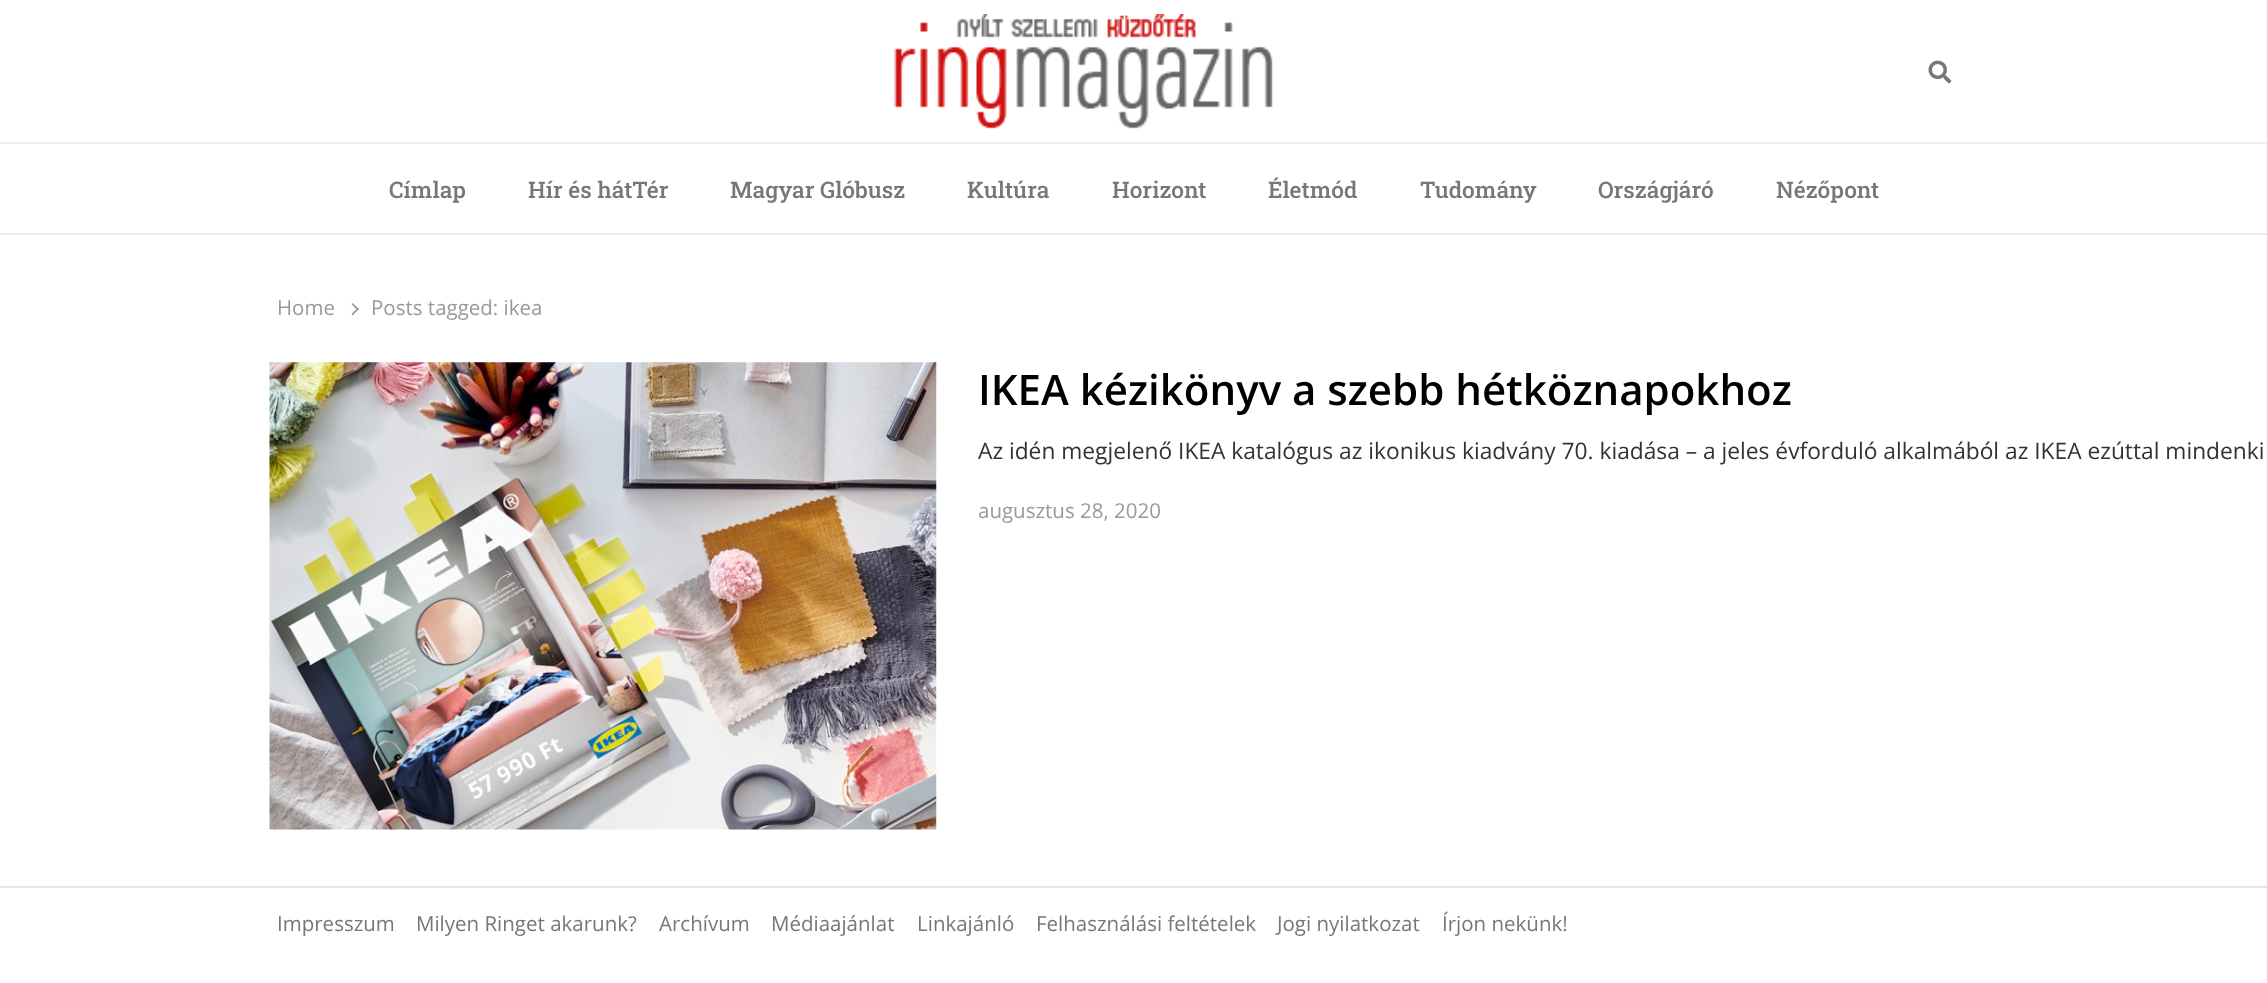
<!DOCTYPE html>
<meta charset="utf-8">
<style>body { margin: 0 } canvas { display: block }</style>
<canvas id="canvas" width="2267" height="983"></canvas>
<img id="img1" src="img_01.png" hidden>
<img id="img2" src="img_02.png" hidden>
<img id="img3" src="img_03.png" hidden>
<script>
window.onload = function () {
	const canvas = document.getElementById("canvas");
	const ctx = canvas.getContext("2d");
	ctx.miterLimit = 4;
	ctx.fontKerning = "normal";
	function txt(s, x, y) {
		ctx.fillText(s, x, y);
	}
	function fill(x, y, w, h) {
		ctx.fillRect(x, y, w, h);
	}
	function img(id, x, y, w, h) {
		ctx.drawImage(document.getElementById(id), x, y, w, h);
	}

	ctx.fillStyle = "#FFFFFF";
	fill(0, 0, 2267, 983);
	ctx.fillStyle = "#EDEDED";
	fill(0, 142, 2267, 2);
	img("img1", 894, 14, 379, 115);
	img("img2", 1928, 60, 24, 24);
	fill(0, 233, 2267, 2);
	ctx.fillStyle = "#999999";
	ctx.beginPath();
	ctx.moveTo(351.5, 304);
	ctx.lineTo(352.5, 303);
	ctx.lineTo(359, 309);
	ctx.lineTo(357.5, 310.5);
	ctx.closePath();
	ctx.fill();
	ctx.beginPath();
	ctx.moveTo(351.5, 314);
	ctx.lineTo(357.5, 308);
	ctx.lineTo(359, 309);
	ctx.lineTo(352.5, 315.5);
	ctx.closePath();
	ctx.fill();
	img("img3", 269, 362, 668, 468);
	ctx.fillStyle = "#E6E6E6";
	fill(0, 886, 2267, 2);
	ctx.font = "500 22.75px Roboto Slab";
	ctx.fillStyle = "#777777";
	txt("Címlap", 389, 198);
	txt("Hír és hátTér", 528, 198);
	txt("Magyar Glóbusz", 730, 198);
	txt("Kultúra", 967, 198);
	txt("Horizont", 1112, 198);
	txt("Életmód", 1268, 198);
	txt("Tudomány", 1420, 198);
	txt("Országjáró", 1598, 198);
	txt("Nézőpont", 1776, 198);
	ctx.font = "20.5px Open Sans";
	ctx.fillStyle = "#999999";
	txt("Home", 277, 315);
	txt("Posts tagged: ikea", 371, 315);
	ctx.font = "600 42px Open Sans";
	ctx.fillStyle = "#000000";
	txt("IKEA kézikönyv a szebb hétköznapokhoz", 978, 405);
	ctx.font = "22.75px Open Sans";
	ctx.fillStyle = "#333333";
	txt("Az idén megjelenő IKEA katalógus az ikonikus kiadvány 70. kiadása – a jeles évforduló alkalmából az IKEA ezúttal mindenki", 978, 459);
	ctx.font = "20.5px Open Sans";
	ctx.fillStyle = "#999999";
	txt("augusztus 28, 2020", 978, 518);
	ctx.fillStyle = "#777777";
	txt("Impresszum", 277, 931);
	txt("Milyen Ringet akarunk?", 416, 931);
	txt("Archívum", 659, 931);
	txt("Médiaajánlat", 771, 931);
	txt("Linkajánló", 917, 931);
	txt("Felhasználási feltételek", 1036, 931);
	txt("Jogi nyilatkozat", 1277, 931);
	txt("Írjon nekünk!", 1442, 931);
};
</script>
